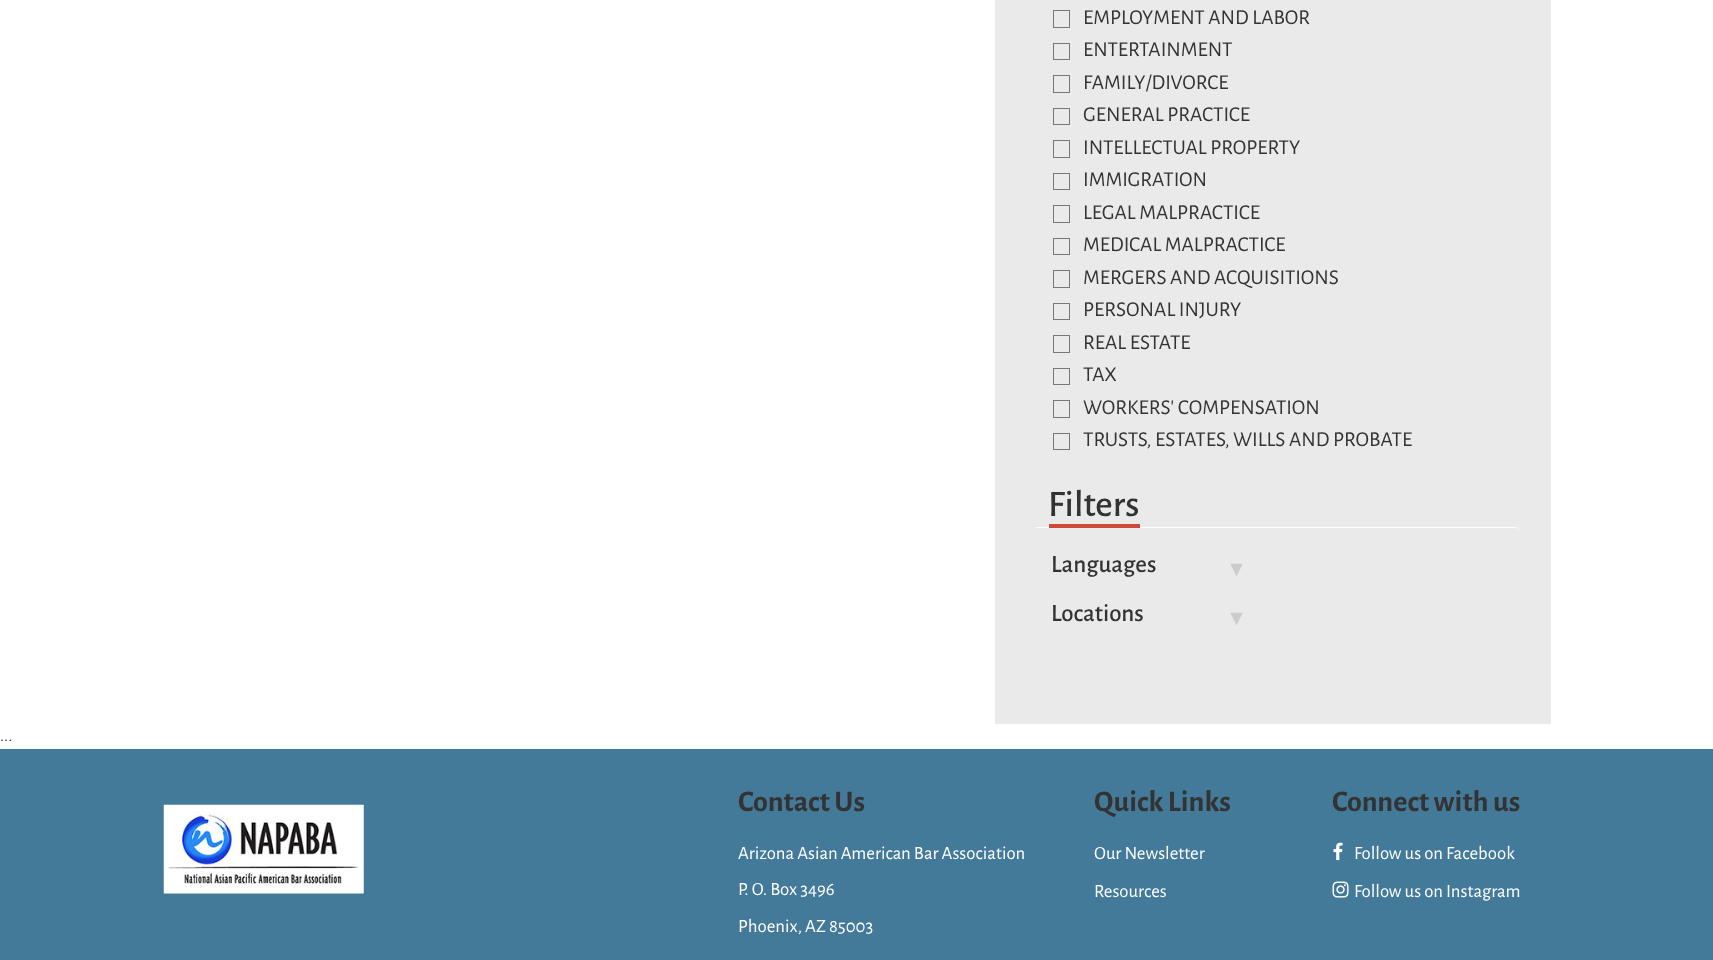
<!DOCTYPE html>
<meta charset="utf-8">
<style>body { margin: 0 } canvas { display: block }</style>
<canvas id="canvas" width="1713" height="960"></canvas>
<img id="img1" src="img_01.png" hidden>
<img id="img2" src="img_02.png" hidden>
<img id="img3" src="img_03.png" hidden>
<script>
window.onload = function () {
	const canvas = document.getElementById("canvas");
	const ctx = canvas.getContext("2d");
	ctx.miterLimit = 4;
	ctx.fontKerning = "normal";
	function txt(s, x, y) {
		ctx.fillText(s, x, y);
	}
	function fill(x, y, w, h) {
		ctx.fillRect(x, y, w, h);
	}
	function img(id, x, y, w, h) {
		ctx.drawImage(document.getElementById(id), x, y, w, h);
	}

	ctx.fillStyle = "#FFFFFF";
	fill(0, 0, 1713, 960);
	ctx.fillStyle = "#EAEAEA";
	fill(995, 0, 556, 724);
	ctx.strokeStyle = "#777777";
	ctx.strokeRect(1053.5, 10.5, 16, 17);
	ctx.strokeRect(1053.5, 43.5, 16, 16);
	ctx.strokeRect(1053.5, 75.5, 16, 17);
	ctx.strokeRect(1053.5, 108.5, 16, 16);
	ctx.strokeRect(1053.5, 140.5, 16, 17);
	ctx.strokeRect(1053.5, 173.5, 16, 16);
	ctx.strokeRect(1053.5, 205.5, 16, 17);
	ctx.strokeRect(1053.5, 238.5, 16, 16);
	ctx.strokeRect(1053.5, 270.5, 16, 17);
	ctx.strokeRect(1053.5, 303.5, 16, 16);
	ctx.strokeRect(1053.5, 335.5, 16, 17);
	ctx.strokeRect(1053.5, 368.5, 16, 16);
	ctx.strokeRect(1053.5, 400.5, 16, 17);
	ctx.strokeRect(1053.5, 433.5, 16, 16);
	ctx.fillStyle = "#FFFFFF";
	ctx.beginPath();
	ctx.roundRect(1033.5, 526.5, 486, 59, 4.5);
	ctx.fill();
	ctx.strokeStyle = "#EAEAEA";
	ctx.stroke();
	ctx.fillStyle = "#CF4A39";
	fill(1049, 524, 91, 4);
	ctx.fillStyle = "#EAEAEA";
	ctx.beginPath();
	ctx.roundRect(1034, 528, 485, 57, [4, 4, 0, 0]);
	ctx.fill();
	fill(1034, 528, 3, 3);
	ctx.fillStyle = "#447A99";
	fill(0, 749, 1713, 211);
	img("img1", 163, 804, 201, 90);
	img("img2", 1333, 842, 10, 19);
	img("img3", 1332, 881, 17, 17);
	ctx.font = "21.25px Alegreya Sans";
	ctx.fillStyle = "#333333";
	txt("EMPLOYMENT AND LABOR", 1083, 24);
	txt("ENTERTAINMENT", 1083, 56);
	txt("FAMILY/DIVORCE", 1083, 89);
	txt("GENERAL PRACTICE", 1083, 121);
	txt("INTELLECTUAL PROPERTY", 1083, 154);
	txt("IMMIGRATION", 1083, 186);
	txt("LEGAL MALPRACTICE", 1083, 219);
	txt("MEDICAL MALPRACTICE", 1083, 251);
	txt("MERGERS AND ACQUISITIONS", 1083, 284);
	txt("PERSONAL INJURY", 1083, 316);
	txt("REAL ESTATE", 1083, 349);
	txt("TAX", 1083, 381);
	txt("WORKERS' COMPENSATION", 1083, 414);
	txt("TRUSTS, ESTATES, WILLS AND PROBATE", 1083, 446);
	ctx.font = "500 37.5px Alegreya Sans";
	txt("Filters", 1048, 516);
	ctx.font = "500 25px Alegreya Sans";
	txt("Languages", 1051, 572);
	ctx.font = "21.25px Liberation Serif";
	ctx.fillStyle = "#CCCCCC";
	txt("▼", 1226, 576);
	ctx.font = "500 25px Alegreya Sans";
	ctx.fillStyle = "#333333";
	txt("Locations", 1051, 621);
	ctx.font = "21.25px Liberation Serif";
	ctx.fillStyle = "#CCCCCC";
	txt("▼", 1226, 625);
	ctx.font = "18px Alegreya Sans";
	ctx.fillStyle = "#333333";
	txt("...", 0, 741);
	ctx.font = "bold 30px Alegreya Sans";
	txt("Contact Us", 738, 811);
	ctx.font = "18.75px Alegreya Sans";
	ctx.fillStyle = "#FFFFFF";
	txt("Arizona Asian American Bar Association", 738, 859);
	txt("P. O. Box 3496", 738, 895);
	txt("Phoenix, AZ 85003", 738, 932);
	ctx.font = "bold 30px Alegreya Sans";
	ctx.fillStyle = "#333333";
	txt("Quick Links", 1094, 811);
	ctx.font = "18.75px Alegreya Sans";
	ctx.fillStyle = "#FFFFFF";
	txt("Our Newsletter", 1094, 859);
	txt("Resources", 1094, 897);
	ctx.font = "bold 30px Alegreya Sans";
	ctx.fillStyle = "#333333";
	txt("Connect with us", 1332, 811);
	ctx.font = "18.75px Alegreya Sans";
	ctx.fillStyle = "#FFFFFF";
	txt("Follow us on Facebook", 1354, 859);
	txt("Follow us on Instagram", 1354, 897);
};
</script>
